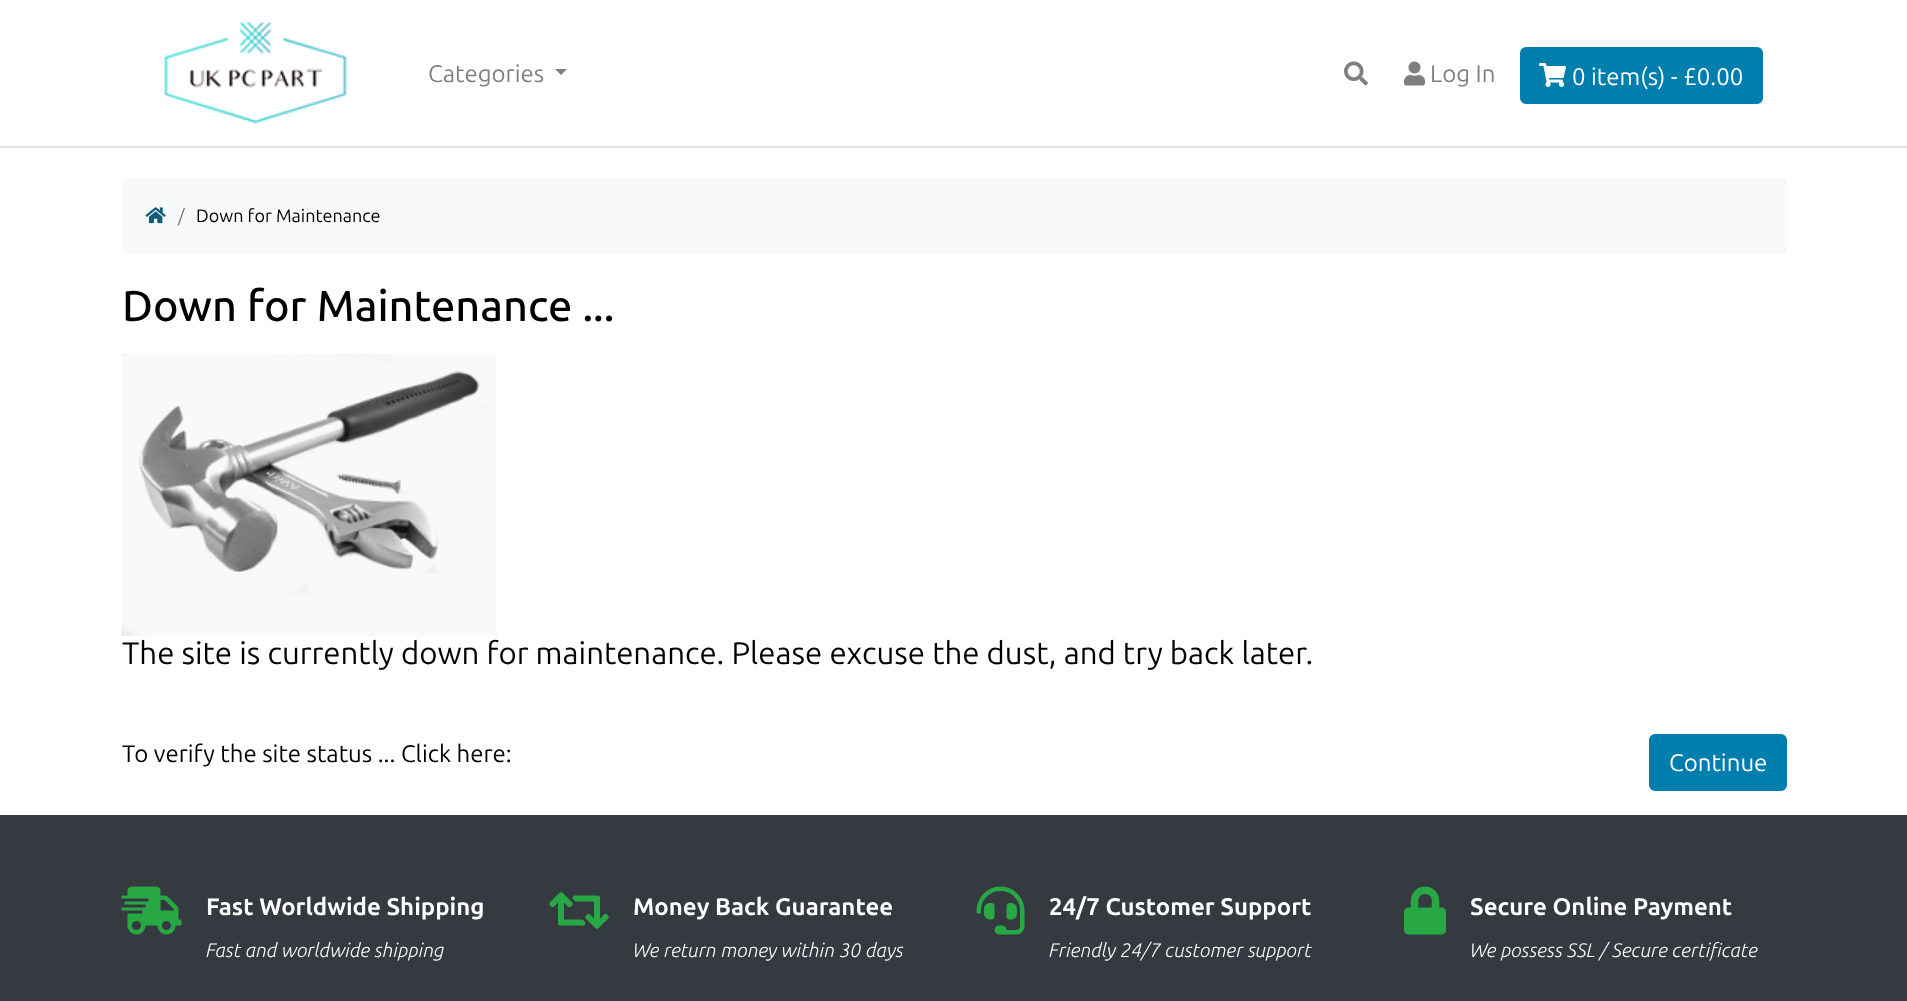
<!DOCTYPE html>
<meta charset="utf-8">
<style>body { margin: 0 } canvas { display: block }</style>
<canvas id="canvas" width="1907" height="1001"></canvas>
<img id="img1" src="img_01.png" hidden>
<img id="img2" src="img_02.png" hidden>
<img id="img3" src="img_03.png" hidden>
<img id="img4" src="img_04.png" hidden>
<img id="img5" src="img_05.png" hidden>
<img id="img6" src="img_06.png" hidden>
<img id="img7" src="img_07.png" hidden>
<img id="img8" src="img_08.png" hidden>
<img id="img9" src="img_09.png" hidden>
<img id="img10" src="img_10.png" hidden>
<script>
window.onload = function () {
	const canvas = document.getElementById("canvas");
	const ctx = canvas.getContext("2d");
	ctx.miterLimit = 4;
	ctx.fontKerning = "normal";
	function txt(s, x, y) {
		ctx.fillText(s, x, y);
	}
	function fill(x, y, w, h) {
		ctx.fillRect(x, y, w, h);
	}
	function round(x, y, w, h, r) {
		ctx.beginPath();
		ctx.roundRect(x, y, w, h, r);
		ctx.fill();
	}
	function img(id, x, y, w, h) {
		ctx.drawImage(document.getElementById(id), x, y, w, h);
	}

	ctx.fillStyle = "#FFFFFF";
	fill(0, 0, 1907, 1001);
	ctx.fillStyle = "#DEE2E6";
	fill(0, 146, 1907, 2);
	img("img1", 163, 21, 184, 103);
	ctx.fillStyle = "#808080";
	ctx.beginPath();
	ctx.moveTo(555, 69);
	ctx.lineTo(567, 69);
	ctx.lineTo(561, 75);
	ctx.closePath();
	ctx.fill();
	img("img2", 1344, 61, 24, 25);
	img("img3", 1404, 61, 21, 25);
	ctx.fillStyle = "#007FAF";
	ctx.beginPath();
	ctx.roundRect(1521, 48, 241, 55, 5);
	ctx.fill();
	ctx.strokeStyle = "#007FAF";
	ctx.lineWidth = 2;
	ctx.stroke();
	img("img4", 1539, 63, 27, 24);
	ctx.fillStyle = "#F8F9FA";
	round(122, 177, 1665, 78, 6);
	img("img5", 145, 207, 21, 17);
	img("img6", 121, 354, 376, 282);
	ctx.fillStyle = "#007FAF";
	ctx.beginPath();
	ctx.roundRect(1650, 735, 136, 55, 5);
	ctx.fill();
	ctx.stroke();
	ctx.fillStyle = "#343A40";
	fill(0, 815, 1907, 186);
	img("img7", 121, 886, 61, 49);
	img("img8", 549, 892, 60, 37);
	img("img9", 976, 886, 49, 49);
	img("img10", 1404, 886, 42, 49);
	ctx.font = "24px Ubuntu";
	ctx.fillStyle = "#808080";
	txt("Categories", 428, 82);
	txt("Log In", 1430, 82);
	ctx.fillStyle = "#FFFFFF";
	txt("0 item(s) - £0.00", 1572, 85);
	ctx.font = "18px Ubuntu";
	ctx.fillStyle = "#6C757D";
	txt("/", 178, 222);
	ctx.fillStyle = "#000000";
	txt("Down for Maintenance", 196, 222);
	ctx.font = "500 43.25px Ubuntu";
	txt("Down for Maintenance ...", 122, 321);
	ctx.font = "31.2px Ubuntu";
	txt("The site is currently down for maintenance. Please excuse the dust, and try back later.", 122, 664);
	ctx.font = "24px Ubuntu";
	txt("To verify the site status ... Click here:", 122, 762);
	ctx.fillStyle = "#FFFFFF";
	txt("Continue", 1669, 771);
	ctx.font = "bold 24px Ubuntu";
	txt("Fast Worldwide Shipping", 206, 915);
	ctx.font = "italic 300 19.5px Ubuntu";
	txt("Fast and worldwide shipping", 206, 957);
	ctx.font = "bold 24px Ubuntu";
	txt("Money Back Guarantee", 633, 915);
	ctx.font = "italic 300 19.5px Ubuntu";
	txt("We return money within 30 days", 633, 957);
	ctx.font = "bold 24px Ubuntu";
	txt("24/7 Customer Support", 1049, 915);
	ctx.font = "italic 300 19.5px Ubuntu";
	txt("Friendly 24/7 customer support", 1049, 957);
	ctx.font = "bold 24px Ubuntu";
	txt("Secure Online Payment", 1470, 915);
	ctx.font = "italic 300 19.5px Ubuntu";
	txt("We possess SSL / Secure сertificate", 1470, 957);
};
</script>
